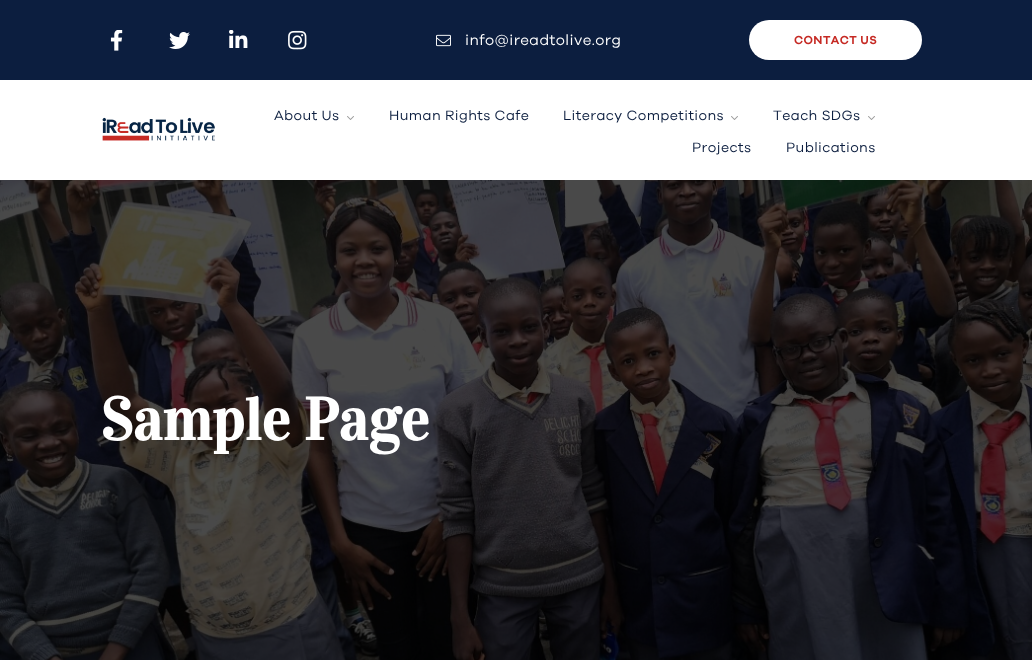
<!DOCTYPE html>
<meta charset="utf-8">
<style>body { margin: 0 } canvas { display: block }</style>
<canvas id="canvas" width="1032" height="663"></canvas>
<img id="img1" src="img_01.png" hidden>
<img id="img2" src="img_02.png" hidden>
<img id="img3" src="img_03.png" hidden>
<img id="img4" src="img_04.png" hidden>
<img id="img5" src="img_05.png" hidden>
<img id="img6" src="img_06.png" hidden>
<img id="img7" src="img_07.png" hidden>
<img id="img8" src="img_08.png" hidden>
<script>
window.onload = function () {
	const canvas = document.getElementById("canvas");
	const ctx = canvas.getContext("2d");
	ctx.miterLimit = 4;
	ctx.fontKerning = "normal";
	function txt(s, x, y) {
		ctx.fillText(s, x, y);
	}
	function fill(x, y, w, h) {
		ctx.fillRect(x, y, w, h);
	}
	function round(x, y, w, h, r) {
		ctx.beginPath();
		ctx.roundRect(x, y, w, h, r);
		ctx.fill();
	}
	function img(id, x, y, w, h) {
		ctx.drawImage(document.getElementById(id), x, y, w, h);
	}

	ctx.fillStyle = "#FFFFFF";
	fill(0, 0, 1032, 663);
	ctx.fillStyle = "#0C1E3F";
	fill(0, 0, 1032, 80);
	img("img1", 110, 30, 13, 21);
	img("img2", 169, 32, 21, 17);
	img("img3", 229, 30, 19, 18);
	img("img4", 288, 30, 19, 20);
	img("img5", 436, 34, 15, 13);
	ctx.fillStyle = "#FFFFFF";
	round(749, 20, 173, 40, 20);
	img("img6", 102, 117, 113, 24);
	img("img7", 347, 116, 7, 4);
	img("img7", 731, 116, 7, 4);
	img("img7", 868, 116, 7, 4);
	img("img8", 0, 180, 1032, 480);
	ctx.letterSpacing = "0.4px";
	ctx.font = "500 15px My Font";
	txt("info@ireadtolive.org", 465, 45);
	ctx.font = "500 12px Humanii";
	ctx.fillStyle = "#C62A24";
	txt("CONTACT US", 794, 44);
	ctx.font = "500 14px My Font";
	ctx.fillStyle = "#0C1E3F";
	txt("About Us", 274, 120);
	txt("Human Rights Cafe", 389, 120);
	txt("Literacy Competitions", 563, 120);
	txt("Teach SDGs", 773, 120);
	txt("Projects", 692, 152);
	txt("Publications", 786, 152);
	ctx.letterSpacing = "0px";
	ctx.font = "bold 60px Vidaloka";
	ctx.fillStyle = "#FFFFFF";
	txt("Sample Page", 100, 440);
};
</script>
